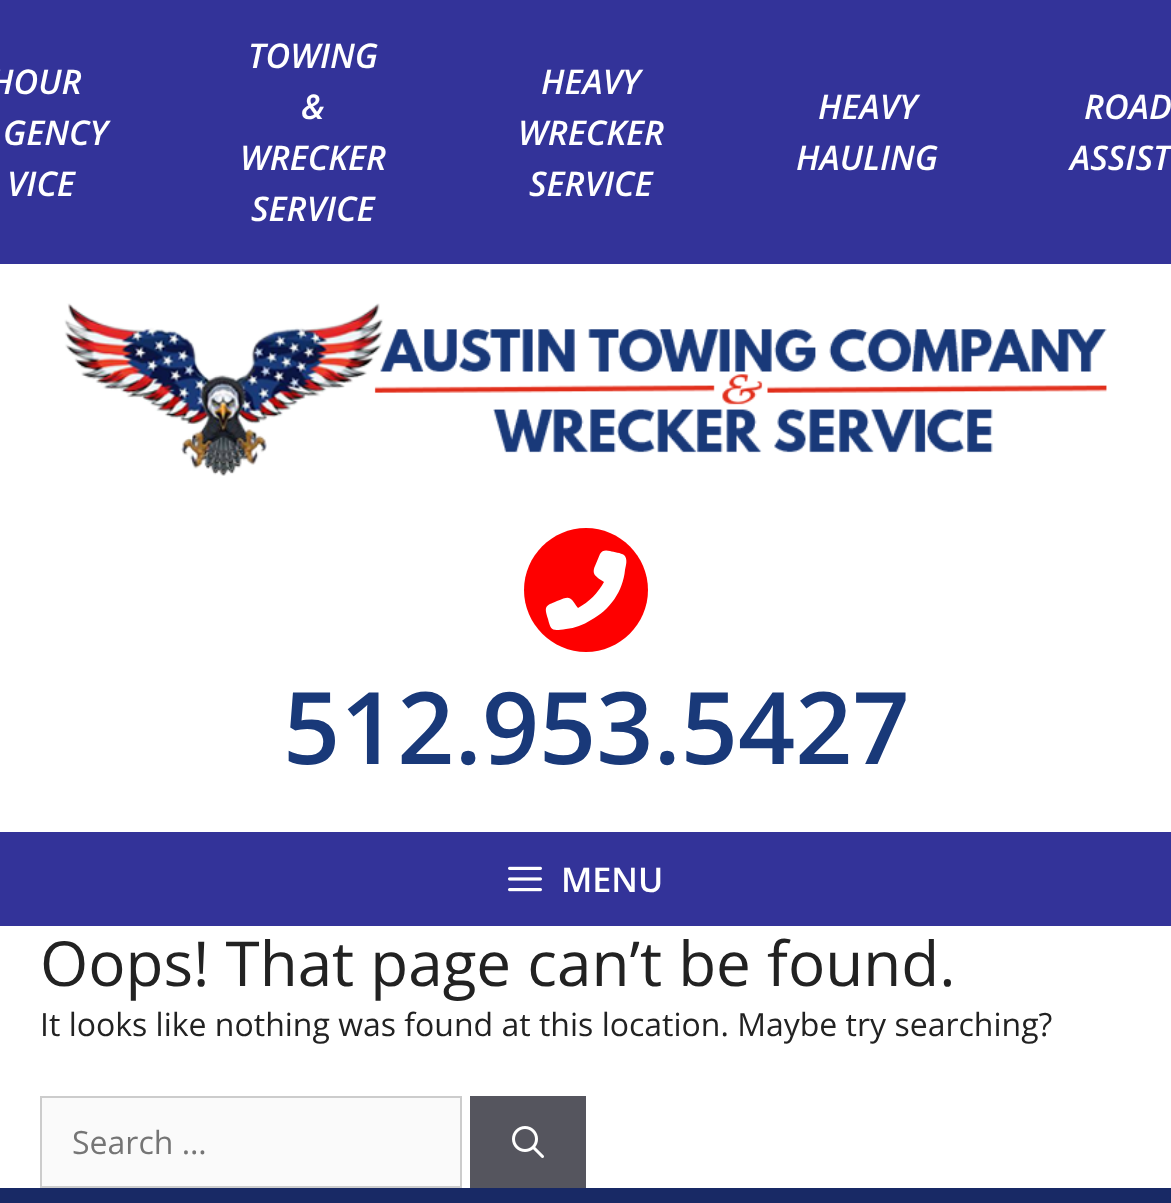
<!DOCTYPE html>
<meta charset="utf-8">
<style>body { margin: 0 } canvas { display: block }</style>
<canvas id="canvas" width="1171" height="1203"></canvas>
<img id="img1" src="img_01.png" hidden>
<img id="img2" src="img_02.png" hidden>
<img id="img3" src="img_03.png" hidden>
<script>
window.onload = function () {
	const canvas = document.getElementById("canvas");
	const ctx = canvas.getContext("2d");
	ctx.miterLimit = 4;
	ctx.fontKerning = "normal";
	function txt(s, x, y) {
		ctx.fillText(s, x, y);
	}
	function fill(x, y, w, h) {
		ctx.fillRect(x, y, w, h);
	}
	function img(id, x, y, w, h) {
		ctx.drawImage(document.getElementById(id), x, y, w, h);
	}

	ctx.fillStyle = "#FFFFFF";
	fill(0, 0, 1171, 1203);
	ctx.fillStyle = "#333399";
	fill(0, 0, 1171, 264);
	img("img1", 64, 303, 1043, 173);
	ctx.fillStyle = "#FE0000";
	ctx.beginPath();
	ctx.moveTo(648, 590);
	ctx.bezierCurveTo(648, 624, 620, 652, 586, 652);
	ctx.bezierCurveTo(552, 652, 524, 624, 524, 590);
	ctx.bezierCurveTo(524, 556, 552, 528, 586, 528);
	ctx.bezierCurveTo(620, 528, 648, 556, 648, 590);
	ctx.closePath();
	ctx.fill();
	ctx.fillStyle = "#FFFFFF";
	ctx.beginPath();
	ctx.moveTo(600, 554);
	ctx.bezierCurveTo(602, 550, 606, 550, 610, 551);
	ctx.bezierCurveTo(614, 552, 621, 553, 624, 555);
	ctx.bezierCurveTo(628, 559, 626, 565, 625, 570);
	ctx.bezierCurveTo(623, 591, 610, 610, 591, 620);
	ctx.bezierCurveTo(583, 625, 575, 628, 566, 629);
	ctx.bezierCurveTo(552, 631, 551, 631, 548, 619);
	ctx.bezierCurveTo(544, 606, 545, 606, 557, 601);
	ctx.bezierCurveTo(571, 595, 570, 597, 578, 608);
	ctx.bezierCurveTo(589, 602, 598, 593, 604, 582);
	ctx.bezierCurveTo(597, 577, 591, 575, 595, 566);
	ctx.closePath();
	ctx.fill();
	ctx.fillStyle = "#333399";
	fill(0, 832, 1171, 94);
	img("img2", 508, 866, 34, 26);
	ctx.fillStyle = "#FAFAFA";
	ctx.beginPath();
	ctx.rect(41, 1097, 420, 90);
	ctx.fill();
	ctx.strokeStyle = "#CCCCCC";
	ctx.lineWidth = 2;
	ctx.stroke();
	ctx.fillStyle = "#55555E";
	fill(470, 1096, 116, 92);
	img("img3", 512, 1126, 32, 32);
	ctx.fillStyle = "#182965";
	fill(0, 1188, 1171, 15);
	ctx.font = "italic 600 34px Open Sans";
	ctx.fillStyle = "#FFFFFF";
	txt("HOUR", -10, 94);
	txt("GENCY", 3, 145);
	txt("VICE", 7, 196);
	txt("TOWING", 248, 68);
	txt("&", 301, 119);
	txt("WRECKER", 240, 170);
	txt("SERVICE", 251, 221);
	txt("HEAVY", 541, 94);
	txt("WRECKER", 518, 145);
	txt("SERVICE", 529, 196);
	txt("HEAVY", 818, 119);
	txt("HAULING", 796, 170);
	txt("ROAD", 1084, 119);
	txt("ASSIST", 1070, 170);
	ctx.font = "600 100px Open Sans";
	ctx.fillStyle = "#193979";
	txt("512.953.5427", 283, 764);
	ctx.font = "600 34px Open Sans";
	ctx.fillStyle = "#FFFFFF";
	txt("MENU", 561, 892);
	ctx.font = "62px Open Sans";
	ctx.fillStyle = "#222222";
	txt("Oops! That page can’t be found.", 40, 986);
	ctx.font = "32px Open Sans";
	txt("It looks like nothing was found at this location. Maybe try searching?", 40, 1036);
	ctx.fillStyle = "#757575";
	txt("Search …", 72, 1154);
};
</script>
